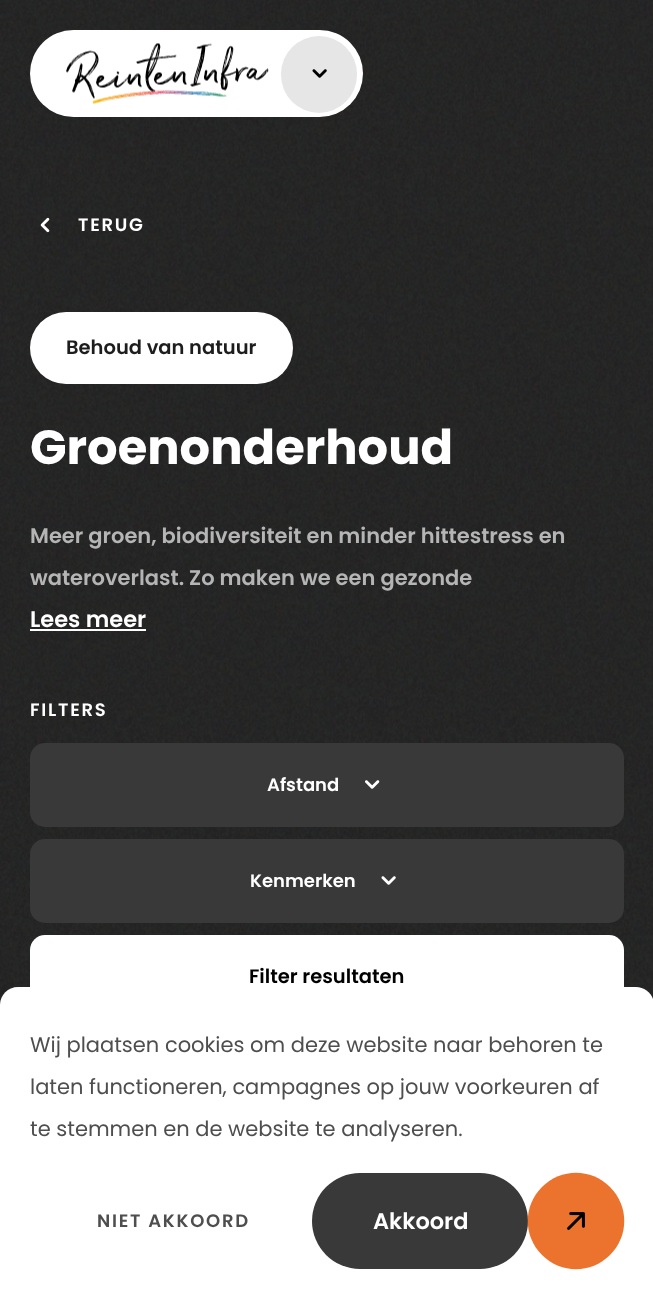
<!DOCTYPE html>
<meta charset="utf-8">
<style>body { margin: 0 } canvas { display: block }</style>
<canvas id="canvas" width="653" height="1304"></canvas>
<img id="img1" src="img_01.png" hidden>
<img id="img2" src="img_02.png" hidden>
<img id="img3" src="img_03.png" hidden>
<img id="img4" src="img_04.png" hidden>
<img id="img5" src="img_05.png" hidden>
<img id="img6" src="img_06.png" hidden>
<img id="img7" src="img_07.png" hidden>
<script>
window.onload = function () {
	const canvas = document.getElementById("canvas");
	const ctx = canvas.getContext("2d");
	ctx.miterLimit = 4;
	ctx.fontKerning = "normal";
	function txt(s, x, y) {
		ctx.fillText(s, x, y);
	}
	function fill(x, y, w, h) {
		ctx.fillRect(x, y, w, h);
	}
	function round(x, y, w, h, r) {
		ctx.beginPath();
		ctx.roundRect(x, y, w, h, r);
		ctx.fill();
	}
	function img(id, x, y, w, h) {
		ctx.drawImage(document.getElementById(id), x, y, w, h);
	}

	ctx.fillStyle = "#212121";
	fill(0, 0, 653, 1304);
	img("img1", 0, 0, 653, 1005);
	ctx.fillStyle = "#FFFFFF";
	round(30, 30, 333, 87, 43.5);
	img("img2", 66, 43, 203, 61);
	ctx.fillStyle = "#E6E6E6";
	round(281, 36, 76, 77, 38);
	img("img3", 312, 69, 15, 9);
	img("img4", 40, 217, 10, 16);
	ctx.fillStyle = "#FFFFFF";
	round(30, 312, 263, 72, 36);
	fill(30, 629, 116, 2);
	ctx.fillStyle = "#393939";
	round(30, 743, 594, 84, 15);
	img("img5", 365, 780, 15, 9);
	round(30, 839, 594, 84, 15);
	img("img6", 381, 876, 15, 9);
	ctx.fillStyle = "#FFFFFF";
	round(30, 935, 594, 84, 15);
	ctx.beginPath();
	ctx.moveTo(18, 987);
	ctx.lineTo(636, 987);
	ctx.bezierCurveTo(646, 987, 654, 995, 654, 1005);
	ctx.lineTo(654, 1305);
	ctx.lineTo(0, 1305);
	ctx.lineTo(0, 1005);
	ctx.bezierCurveTo(0, 995, 8, 987, 18, 987);
	ctx.closePath();
	ctx.fill();
	ctx.fillStyle = "#393939";
	round(312, 1173, 216, 96, 48);
	ctx.fillStyle = "#EC732E";
	ctx.beginPath();
	ctx.moveTo(542, 1187);
	ctx.bezierCurveTo(561, 1168, 591, 1168, 610, 1187);
	ctx.bezierCurveTo(629, 1206, 629, 1236, 610, 1255);
	ctx.bezierCurveTo(591, 1274, 561, 1274, 542, 1255);
	ctx.bezierCurveTo(523, 1236, 523, 1206, 542, 1187);
	ctx.closePath();
	ctx.fill();
	img("img7", 567, 1212, 18, 18);
	ctx.letterSpacing = "1.75px";
	ctx.font = "600 18px Poppins";
	ctx.fillStyle = "#FFFFFF";
	txt("TERUG", 78, 231);
	ctx.letterSpacing = "0px";
	ctx.font = "600 19.5px Poppins";
	ctx.fillStyle = "#1D1D1D";
	txt("Behoud van natuur", 66, 354);
	ctx.font = "bold 48px Poppins";
	ctx.fillStyle = "#FFFFFF";
	txt("Groenonderhoud", 30, 464);
	ctx.font = "600 21px Poppins";
	ctx.fillStyle = "#B5B5B5";
	txt("Meer groen, biodiversiteit en minder hittestress en", 30, 543);
	txt("wateroverlast. Zo maken we een gezonde", 30, 585);
	ctx.font = "600 22.5px Poppins";
	ctx.fillStyle = "#FFFFFF";
	txt("Lees meer", 30, 627);
	ctx.letterSpacing = "1.75px";
	ctx.font = "600 18px Poppins";
	txt("FILTERS", 30, 716);
	ctx.letterSpacing = "0px";
	txt("Afstand", 267, 791);
	txt("Kenmerken", 250, 887);
	ctx.font = "600 19.5px Poppins";
	ctx.fillStyle = "#000000";
	txt("Filter resultaten", 249, 983);
	ctx.font = "21px Poppins";
	ctx.fillStyle = "#4E4E4E";
	txt("Wij plaatsen cookies om deze website naar behoren te", 30, 1052);
	txt("laten functioneren, campagnes op jouw voorkeuren af", 30, 1094);
	txt("te stemmen en de website te analyseren.", 30, 1136);
	ctx.letterSpacing = "1.75px";
	ctx.font = "600 18px Poppins";
	txt("NIET AKKOORD", 97, 1227);
	ctx.letterSpacing = "0px";
	ctx.font = "600 22.5px Poppins";
	ctx.fillStyle = "#FFFFFF";
	txt("Akkoord", 373, 1229);
};
</script>
